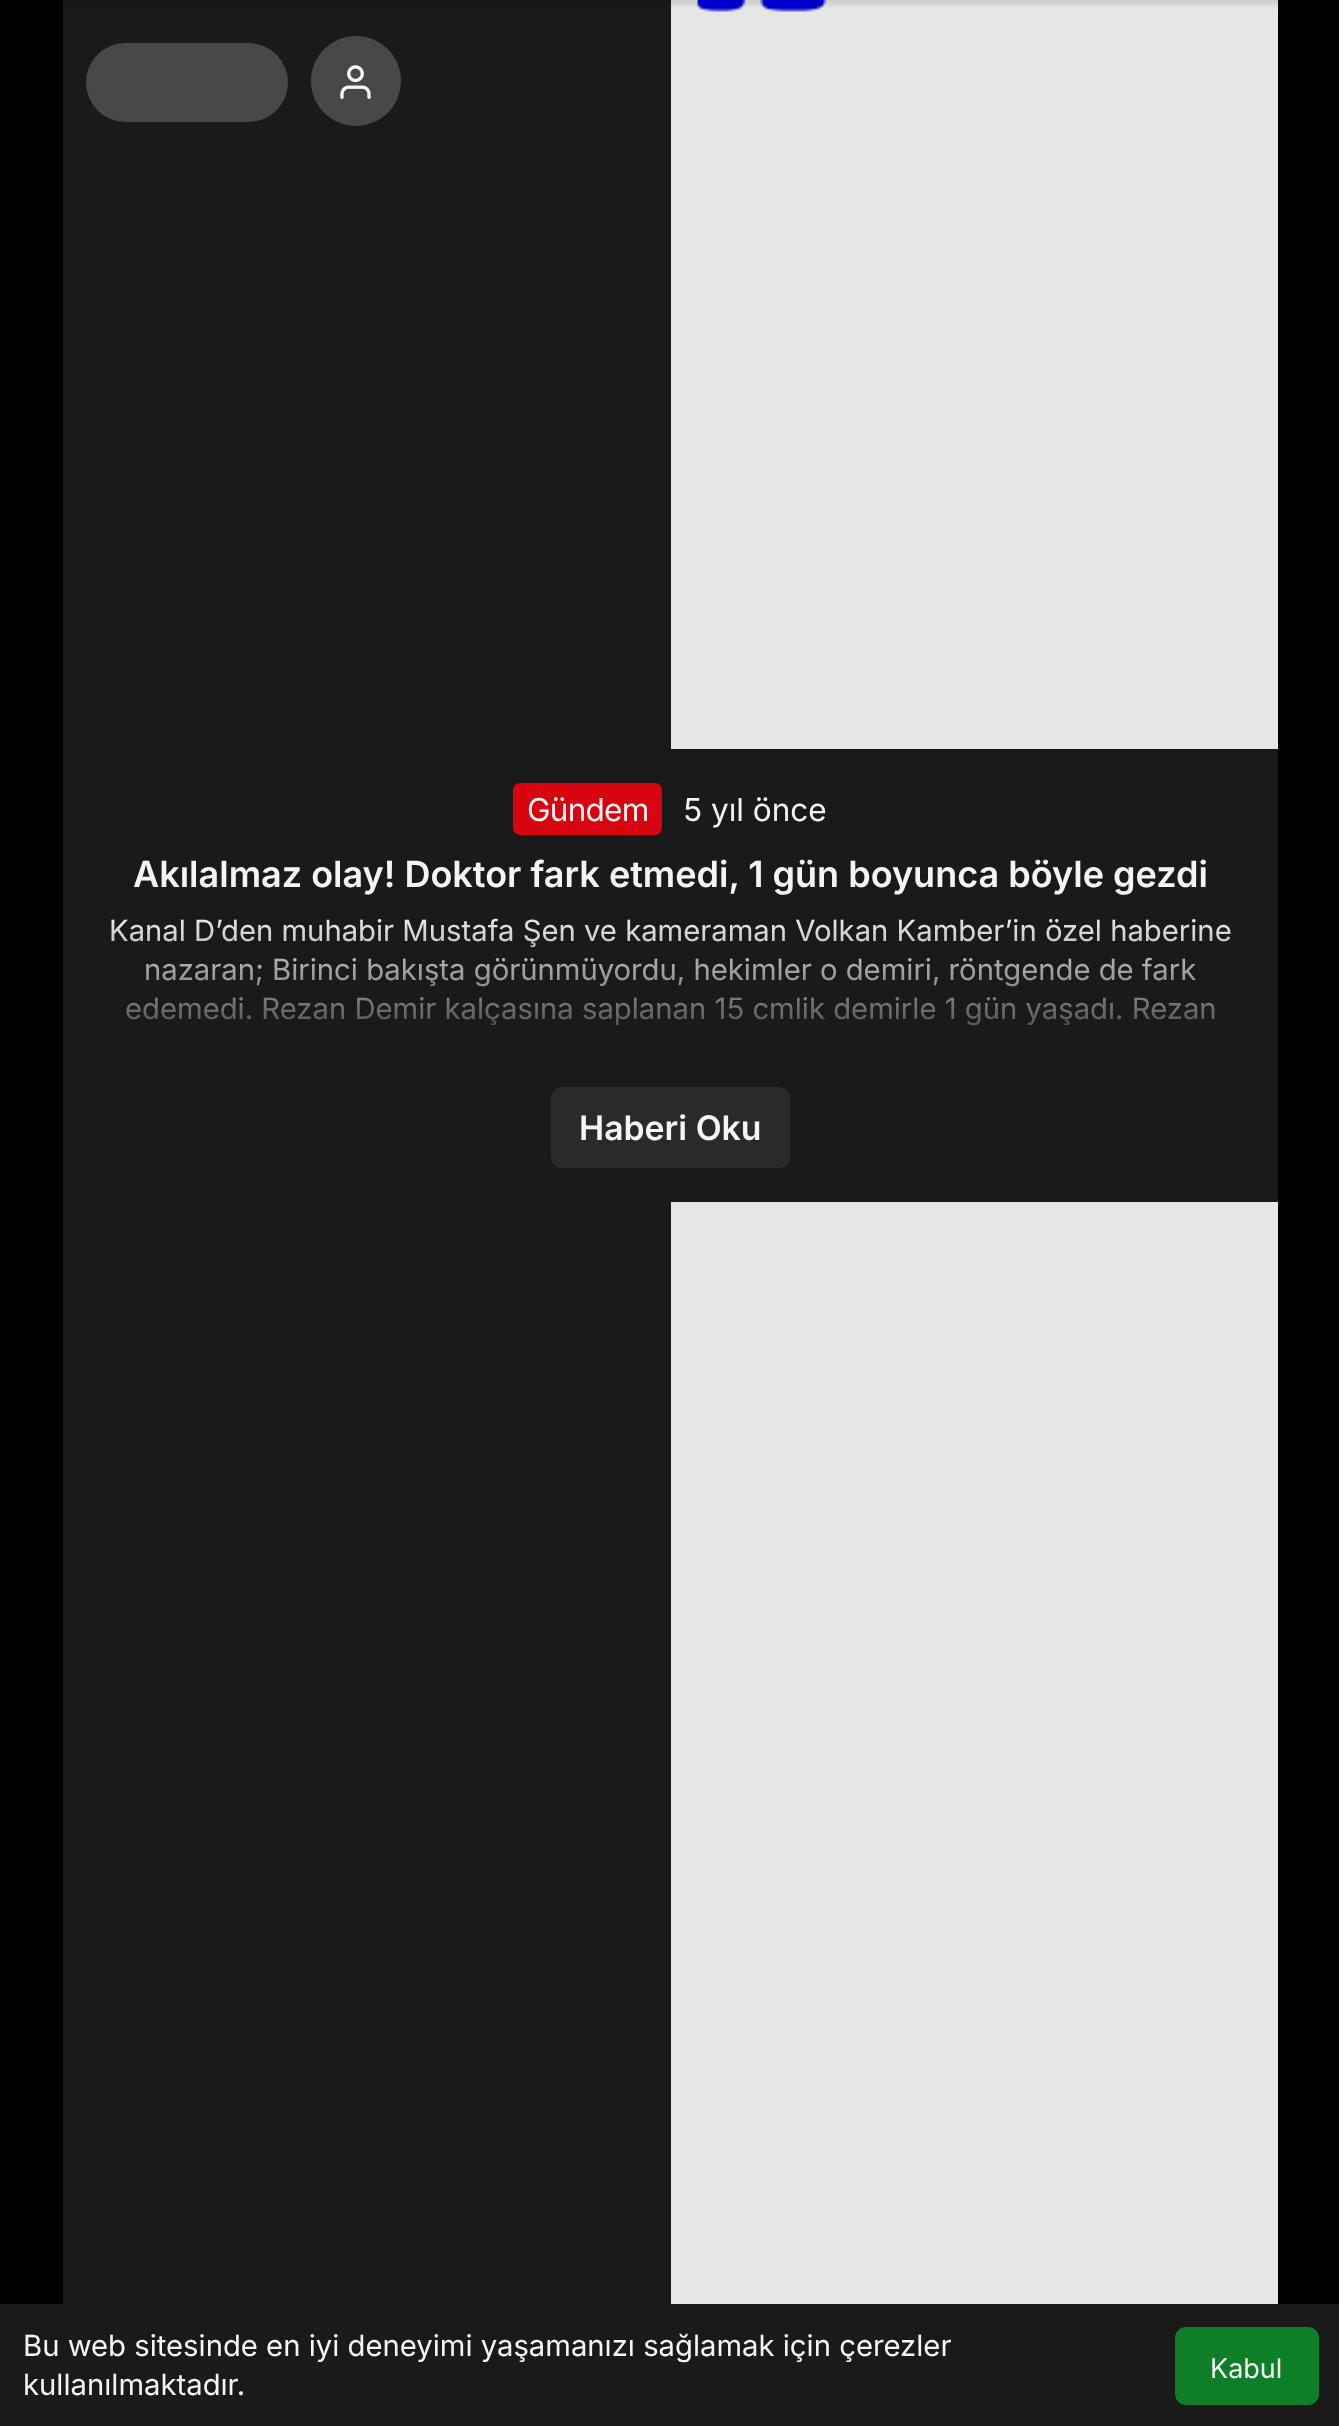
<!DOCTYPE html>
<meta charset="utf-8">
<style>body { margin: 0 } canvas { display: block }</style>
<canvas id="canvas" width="1339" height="2426"></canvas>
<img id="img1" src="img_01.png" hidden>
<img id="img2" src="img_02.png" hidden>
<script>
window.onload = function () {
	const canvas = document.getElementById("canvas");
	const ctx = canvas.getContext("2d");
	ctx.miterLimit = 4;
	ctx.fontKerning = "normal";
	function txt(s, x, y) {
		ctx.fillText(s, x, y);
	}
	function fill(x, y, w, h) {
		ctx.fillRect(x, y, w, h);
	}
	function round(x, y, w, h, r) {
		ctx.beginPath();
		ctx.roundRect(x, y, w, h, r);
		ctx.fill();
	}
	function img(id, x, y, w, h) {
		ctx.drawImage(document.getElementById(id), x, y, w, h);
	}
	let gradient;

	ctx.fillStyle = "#000000";
	fill(0, 0, 1339, 2426);
	ctx.fillStyle = "#1A1A1A";
	fill(63, 0, 1215, 2304);
	ctx.fillStyle = "#E6E6E6";
	fill(671, 0, 607, 749);
	ctx.fillStyle = "rgba(0, 0, 0, 0.1)";
	ctx.filter = "blur(2px)";
	ctx.beginPath();
	ctx.rect(5, -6, 1332, 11);
	ctx.fill();
	ctx.filter = "none";
	img("img1", 697, 0, 130, 12);
	ctx.fillStyle = "#484848";
	round(86, 43, 202, 79, 39.5);
	ctx.beginPath();
	ctx.arc(356, 81, 45, 0, Math.PI * 2);
	ctx.fill();
	img("img2", 340, 65, 31, 34);
	ctx.fillStyle = "#D7050F";
	round(513, 783, 149, 52, 7);
	ctx.fillStyle = "#2A2A2A";
	round(551, 1087, 239, 81, 11);
	ctx.fillStyle = "#E6E6E6";
	fill(671, 1202, 607, 1102);
	ctx.fillStyle = "#1A1A1A";
	fill(0, 2304, 1339, 122);
	ctx.fillStyle = "#0F7E29";
	round(1175, 2327, 144, 78, 11);
	ctx.letterSpacing = "-0.75px";
	ctx.font = "31.5px Inter";
	ctx.fillStyle = "#FDF3F3";
	txt("Gündem", 527, 821);
	ctx.letterSpacing = "0px";
	ctx.fillStyle = "#F4F4F4";
	txt("5 yıl önce", 683, 821);
	ctx.font = "600 36px Inter";
	txt("Akılalmaz olay! Doktor fark etmedi, 1 gün boyunca böyle gezdi", 133, 887);
	ctx.font = "29.25px Inter";
	txt("Kanal D’den muhabir Mustafa Şen ve kameraman Volkan Kamber’in özel haberine", 109, 941);
	txt("nazaran; Birinci bakışta görünmüyordu, hekimler o demiri, röntgende de fark", 144, 980);
	txt("edemedi. Rezan Demir kalçasına saplanan 15 cmlik demirle 1 gün yaşadı. Rezan", 125, 1019);
	gradient = ctx.createLinearGradient(671, 911, 671, 1069);
	gradient.addColorStop(0, "rgba(26, 26, 26, 0)");
	gradient.addColorStop(1, "#1A1A1A");
	ctx.fillStyle = gradient;
	fill(111, 918, 1120, 108);
	ctx.font = "600 33.75px Inter";
	ctx.fillStyle = "#F4F4F4";
	txt("Haberi Oku", 579, 1140);
	ctx.font = "29.25px Inter";
	txt("Bu web sitesinde en iyi deneyimi yaşamanızı sağlamak için çerezler", 23, 2356);
	txt("kullanılmaktadır.", 23, 2395);
	ctx.font = "27px Inter";
	txt("Kabul", 1210, 2378);
};
</script>
